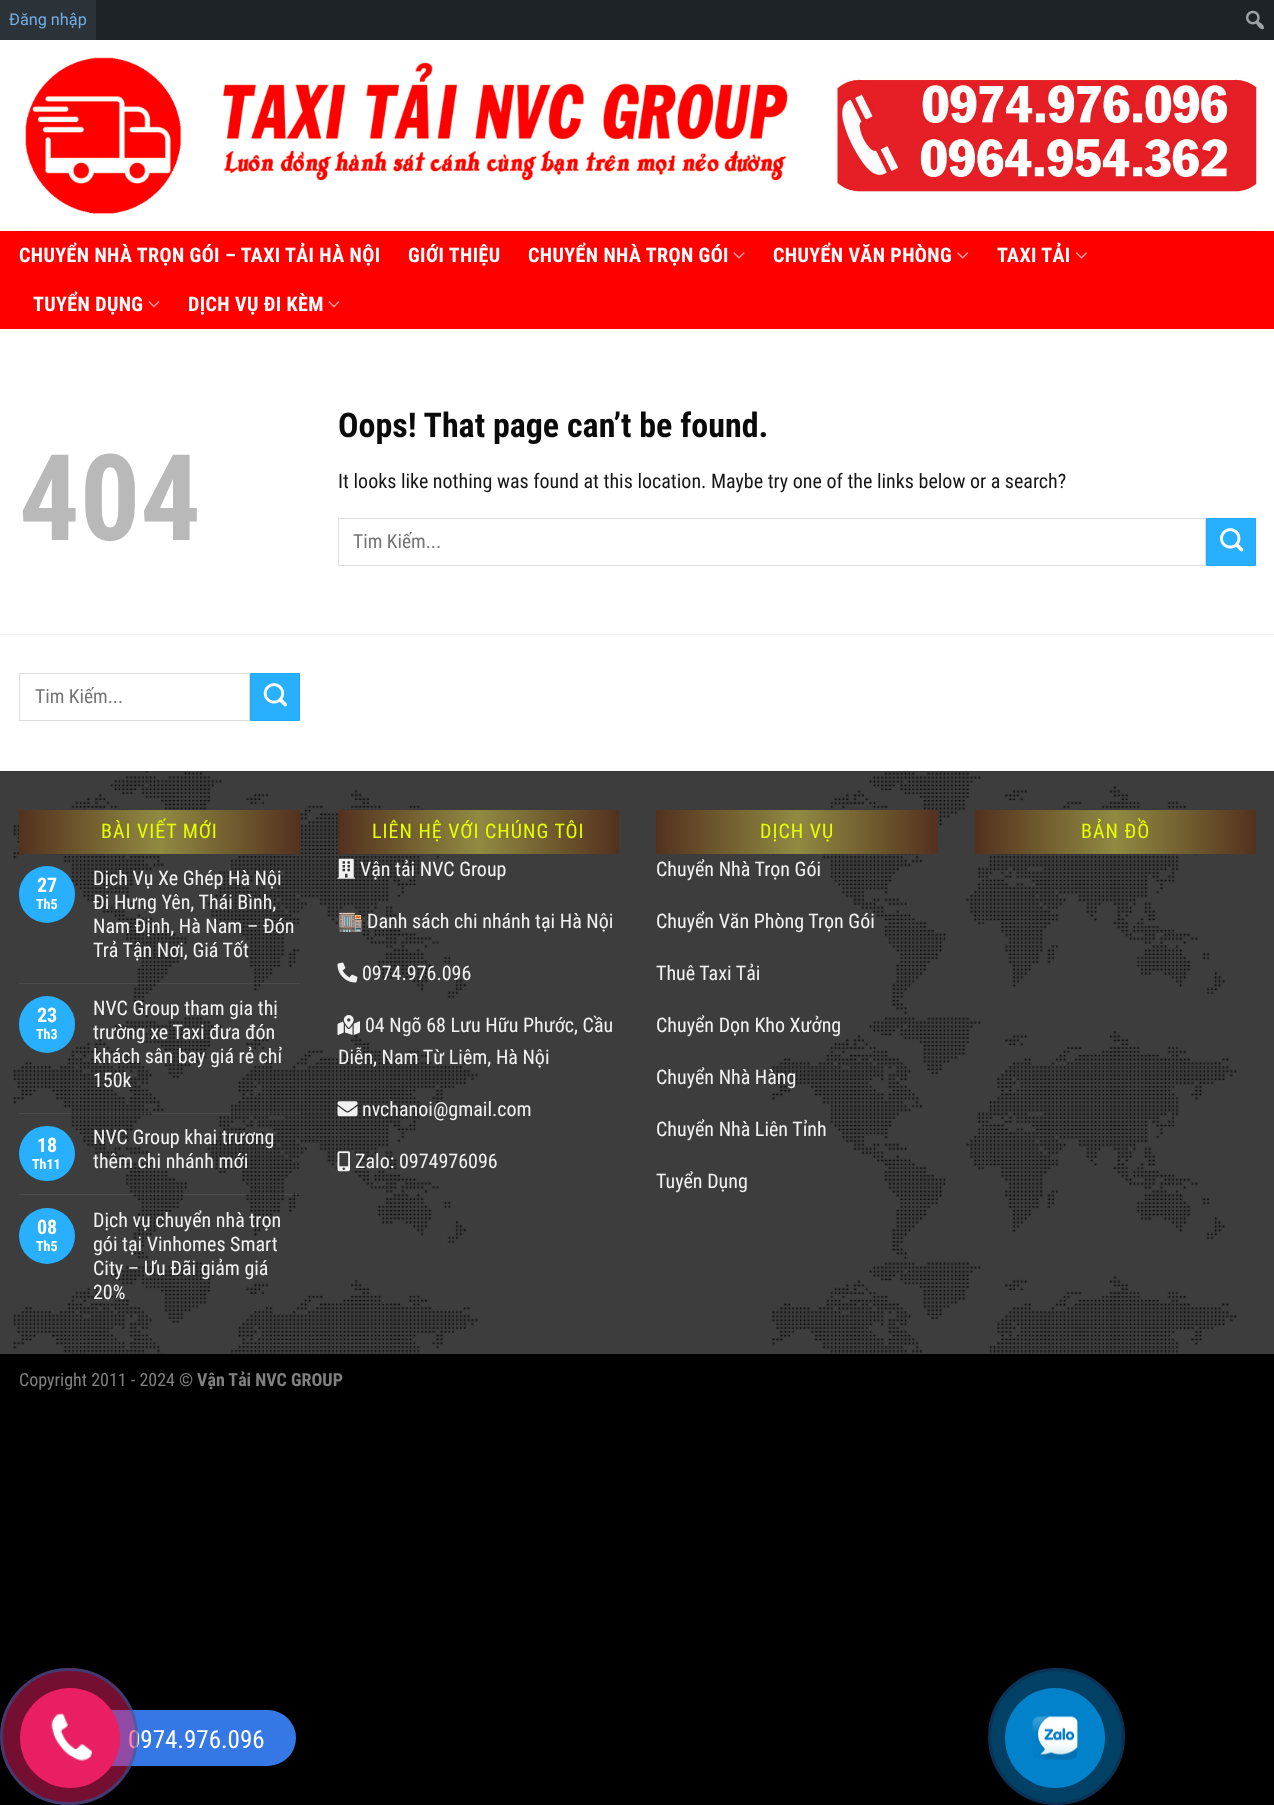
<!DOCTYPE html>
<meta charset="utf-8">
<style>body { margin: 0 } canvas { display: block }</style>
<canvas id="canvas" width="1274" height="1805"></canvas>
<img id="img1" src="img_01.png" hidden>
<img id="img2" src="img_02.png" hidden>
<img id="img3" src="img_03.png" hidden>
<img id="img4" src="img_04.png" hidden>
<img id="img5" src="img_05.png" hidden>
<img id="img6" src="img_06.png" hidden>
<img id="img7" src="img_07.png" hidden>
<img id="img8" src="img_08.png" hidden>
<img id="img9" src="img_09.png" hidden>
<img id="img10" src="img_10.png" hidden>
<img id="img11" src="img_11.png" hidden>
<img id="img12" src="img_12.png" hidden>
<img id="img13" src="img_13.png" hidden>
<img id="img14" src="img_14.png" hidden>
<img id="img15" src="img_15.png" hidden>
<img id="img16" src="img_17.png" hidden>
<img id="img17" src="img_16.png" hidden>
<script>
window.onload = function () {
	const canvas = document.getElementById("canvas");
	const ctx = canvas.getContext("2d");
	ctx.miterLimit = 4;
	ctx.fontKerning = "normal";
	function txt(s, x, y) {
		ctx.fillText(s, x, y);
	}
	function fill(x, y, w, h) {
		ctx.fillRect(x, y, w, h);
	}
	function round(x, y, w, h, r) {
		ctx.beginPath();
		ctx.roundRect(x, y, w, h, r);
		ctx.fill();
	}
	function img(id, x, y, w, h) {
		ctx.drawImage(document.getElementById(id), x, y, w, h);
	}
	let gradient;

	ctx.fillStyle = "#000000";
	fill(0, 0, 1274, 1805);
	ctx.fillStyle = "#1D2327";
	fill(96, 0, 1178, 40);
	ctx.fillStyle = "#2C3338";
	fill(0, 0, 96, 40);
	img("img1", 1246, 10, 18, 20);
	ctx.fillStyle = "#FFFFFF";
	fill(0, 40, 1274, 731);
	img("img2", 25, 57, 763, 157);
	img("img3", 837, 77, 420, 117);
	ctx.fillStyle = "#FF0000";
	fill(0, 231, 1274, 98);
	ctx.fillStyle = "#E80202";
	fill(19, 231, 1237, 1);
	img("img4", 733, 252, 12, 7);
	img("img5", 957, 252, 12, 7);
	img("img6", 1075, 252, 12, 7);
	img("img7", 148, 301, 12, 7);
	img("img7", 328, 301, 12, 7);
	ctx.strokeStyle = "#DDDDDD";
	ctx.strokeRect(338.5, 518.5, 867, 47);
	ctx.fillStyle = "#28B0FF";
	ctx.beginPath();
	ctx.rect(1206.5, 518.5, 49, 47);
	ctx.fill();
	ctx.strokeStyle = "#26A7F2";
	ctx.stroke();
	img("img8", 1220, 528, 24, 24);
	ctx.fillStyle = "#F2F2F2";
	fill(0, 634, 1274, 1);
	ctx.strokeStyle = "#DDDDDD";
	ctx.strokeRect(19.5, 673.5, 230, 47);
	ctx.fillStyle = "#28B0FF";
	ctx.beginPath();
	ctx.rect(250.5, 673.5, 49, 47);
	ctx.fill();
	ctx.strokeStyle = "#26A7F2";
	ctx.stroke();
	img("img9", 263, 683, 24, 24);
	ctx.fillStyle = "#3D3D3D";
	fill(0, 771, 1274, 583);
	img("img10", 13, 771, 1224, 583);
	ctx.fillStyle = "rgba(0, 0, 0, 0.05)";
	fill(0, 771, 1274, 1);
	gradient = ctx.createLinearGradient(19, 832, 300, 832);
	gradient.addColorStop(0, "#53311E");
	gradient.addColorStop(0.5, "#908A42");
	gradient.addColorStop(1, "#53311E");
	ctx.fillStyle = gradient;
	fill(19, 810, 281, 44);
	ctx.fillStyle = "#28B0FF";
	round(19, 866, 56, 57, 28);
	ctx.fillStyle = "rgba(255, 255, 255, 0.08)";
	fill(19, 983, 281, 1);
	ctx.fillStyle = "#28B0FF";
	round(19, 996, 56, 57, 28);
	ctx.fillStyle = "rgba(255, 255, 255, 0.08)";
	fill(19, 1113, 281, 1);
	ctx.fillStyle = "#28B0FF";
	round(19, 1126, 56, 55, 27.5);
	ctx.fillStyle = "rgba(255, 255, 255, 0.08)";
	fill(19, 1194, 281, 1);
	ctx.fillStyle = "#28B0FF";
	ctx.beginPath();
	ctx.arc(47, 1236, 28, 0, Math.PI * 2);
	ctx.fill();
	gradient = ctx.createLinearGradient(338, 832, 619, 832);
	gradient.addColorStop(0, "#53311E");
	gradient.addColorStop(0.5, "#908A42");
	gradient.addColorStop(1, "#53311E");
	ctx.fillStyle = gradient;
	fill(338, 810, 281, 44);
	img("img11", 337, 858, 18, 21);
	img("img12", 337, 962, 21, 21);
	img("img13", 337, 1015, 23, 20);
	img("img14", 337, 1101, 21, 16);
	img("img15", 337, 1151, 13, 21);
	gradient = ctx.createLinearGradient(656, 832, 938, 832);
	gradient.addColorStop(0, "#53311E");
	gradient.addColorStop(0.5, "#908A42");
	gradient.addColorStop(1, "#53311E");
	ctx.fillStyle = gradient;
	fill(656, 810, 282, 44);
	gradient = ctx.createLinearGradient(975, 832, 1256, 832);
	gradient.addColorStop(0, "#53311E");
	gradient.addColorStop(0.5, "#908A42");
	gradient.addColorStop(1, "#53311E");
	ctx.fillStyle = gradient;
	fill(975, 810, 281, 44);
	ctx.fillStyle = "#3578E5";
	round(65, 1710, 231, 56, 28);
	ctx.fillStyle = "#014165";
	ctx.beginPath();
	ctx.arc(1056.5, 1736.5, 67, 0, Math.PI * 2);
	ctx.fill();
	ctx.strokeStyle = "#0B3254";
	ctx.lineWidth = 3;
	ctx.stroke();
	ctx.fillStyle = "#0182CA";
	ctx.beginPath();
	ctx.arc(1055, 1738, 50, 0, Math.PI * 2);
	ctx.fill();
	img("img16", 1032, 1716, 46, 44);
	ctx.font = "16.25px Roboto";
	ctx.fillStyle = "#72AEE6";
	txt("Đăng nhập", 9, 25);
	ctx.letterSpacing = "0.4px";
	ctx.font = "bold 20px Roboto Condensed";
	ctx.fillStyle = "#FFFFFF";
	txt("CHUYỂN NHÀ TRỌN GÓI – TAXI TẢI HÀ NỘI", 19, 262);
	txt("GIỚI THIỆU", 408, 262);
	txt("CHUYỂN NHÀ TRỌN GÓI", 528, 262);
	txt("CHUYỂN VĂN PHÒNG", 773, 262);
	txt("TAXI TẢI", 997, 262);
	txt("TUYỂN DỤNG", 33, 311);
	txt("DỊCH VỤ ĐI KÈM", 188, 311);
	ctx.letterSpacing = "0px";
	ctx.font = "bold 120px Roboto Condensed";
	ctx.fillStyle = "#B9B9B9";
	txt("404", 19, 540);
	ctx.font = "bold 34px Roboto Condensed";
	ctx.fillStyle = "#0A0A0A";
	txt("Oops! That page can’t be found.", 338, 437);
	ctx.font = "20px Roboto Condensed";
	ctx.fillStyle = "#161616";
	txt("It looks like nothing was found at this location. Maybe try one of the links below or a search?", 338, 488);
	ctx.font = "19.5px Roboto Condensed";
	ctx.fillStyle = "#757575";
	txt("Tim Kiếm...", 353, 548);
	txt("Tim Kiếm...", 35, 703);
	ctx.letterSpacing = "1px";
	ctx.font = "20px Roboto Condensed";
	ctx.fillStyle = "#E4FF00";
	txt("BÀI VIẾT MỚI", 101, 838);
	ctx.letterSpacing = "0px";
	ctx.font = "bold 20px Roboto Condensed";
	ctx.fillStyle = "#FFFFFF";
	txt("27", 37, 892);
	ctx.font = "bold 14px Roboto Condensed";
	txt("Th5", 36, 909);
	ctx.font = "20px Roboto Condensed";
	ctx.fillStyle = "#F1F1F1";
	txt("Dịch Vụ Xe Ghép Hà Nội", 93, 885);
	txt("Đi Hưng Yên, Thái Bình,", 93, 909);
	txt("Nam Định, Hà Nam – Đón", 93, 933);
	txt("Trả Tận Nơi, Giá Tốt", 93, 957);
	ctx.font = "bold 20px Roboto Condensed";
	ctx.fillStyle = "#FFFFFF";
	txt("23", 37, 1022);
	ctx.font = "bold 14px Roboto Condensed";
	txt("Th3", 36, 1039);
	ctx.font = "20px Roboto Condensed";
	ctx.fillStyle = "#F1F1F1";
	txt("NVC Group tham gia thị", 93, 1015);
	txt("trường xe Taxi đưa đón", 93, 1039);
	txt("khách sân bay giá rẻ chỉ", 93, 1063);
	txt("150k", 93, 1087);
	ctx.font = "bold 20px Roboto Condensed";
	ctx.fillStyle = "#FFFFFF";
	txt("18", 37, 1152);
	ctx.font = "bold 14px Roboto Condensed";
	txt("Th11", 32, 1169);
	ctx.font = "20px Roboto Condensed";
	ctx.fillStyle = "#F1F1F1";
	txt("NVC Group khai trương", 93, 1144);
	txt("thêm chi nhánh mới", 93, 1168);
	ctx.font = "bold 20px Roboto Condensed";
	ctx.fillStyle = "#FFFFFF";
	txt("08", 37, 1234);
	ctx.font = "bold 14px Roboto Condensed";
	txt("Th5", 36, 1251);
	ctx.font = "20px Roboto Condensed";
	ctx.fillStyle = "#F1F1F1";
	txt("Dịch vụ chuyển nhà trọn", 93, 1227);
	txt("gói tại Vinhomes Smart", 93, 1251);
	txt("City – Ưu Đãi giảm giá", 93, 1275);
	txt("20%", 93, 1299);
	ctx.letterSpacing = "1px";
	ctx.fillStyle = "#E4FF00";
	txt("LIÊN HỆ VỚI CHÚNG TÔI", 372, 838);
	ctx.letterSpacing = "0px";
	ctx.fillStyle = "#F1F1F1";
	txt("Vận tải NVC Group", 360, 876);
	ctx.font = "20px Noto Color Emoji";
	txt("🏬", 338, 928);
	ctx.font = "20px Roboto Condensed";
	txt("Danh sách chi nhánh tại Hà Nội", 367, 928);
	txt("0974.976.096", 362, 980);
	txt("04 Ngõ 68 Lưu Hữu Phước, Cầu", 365, 1032);
	txt("Diễn, Nam Từ Liêm, Hà Nội", 338, 1064);
	txt("nvchanoi@gmail.com", 362, 1116);
	txt("Zalo: 0974976096", 355, 1168);
	ctx.letterSpacing = "1px";
	ctx.fillStyle = "#E4FF00";
	txt("DỊCH VỤ", 760, 838);
	ctx.letterSpacing = "0px";
	ctx.fillStyle = "#F1F1F1";
	txt("Chuyển Nhà Trọn Gói", 656, 876);
	txt("Chuyển Văn Phòng Trọn Gói", 656, 928);
	txt("Thuê Taxi Tải", 656, 980);
	txt("Chuyển Dọn Kho Xưởng", 656, 1032);
	txt("Chuyển Nhà Hàng", 656, 1084);
	txt("Chuyển Nhà Liên Tỉnh", 656, 1136);
	txt("Tuyển Dụng", 656, 1188);
	ctx.letterSpacing = "1px";
	ctx.fillStyle = "#E4FF00";
	txt("BẢN ĐỒ", 1081, 838);
	ctx.letterSpacing = "0px";
	ctx.font = "18px Roboto Condensed";
	ctx.fillStyle = "#808080";
	txt("Copyright 2011 - 2024 ©", 19, 1386);
	ctx.font = "bold 18px Roboto Condensed";
	txt("Vận Tải NVC GROUP", 197, 1386);
	ctx.font = "25px Roboto Condensed";
	ctx.fillStyle = "#FFFFFF";
	txt("0974.976.096", 128, 1748);
	ctx.fillStyle = "rgba(233, 30, 99, 0.5)";
	round(0, 1668, 138, 137, 68.5);
	ctx.beginPath();
	ctx.roundRect(1.5, 1669.5, 135, 134, 67);
	ctx.strokeStyle = "rgba(21, 100, 167, 0.5)";
	ctx.stroke();
	ctx.fillStyle = "#E91E63";
	ctx.beginPath();
	ctx.arc(70, 1738, 50, 0, Math.PI * 2);
	ctx.fill();
	img("img17", 51, 1713, 41, 48);
};
</script>
